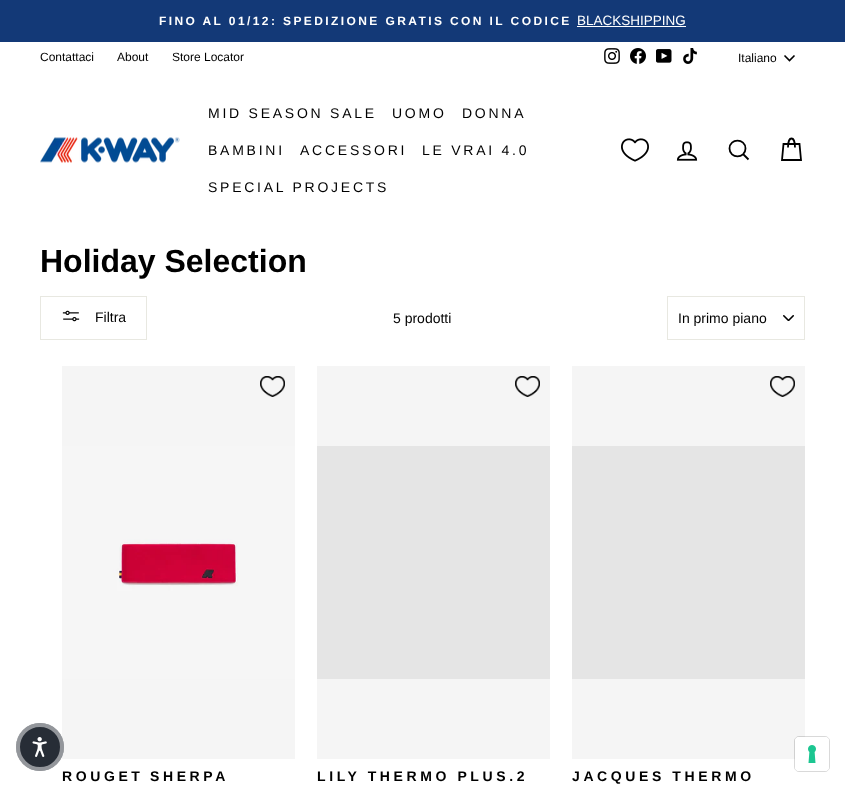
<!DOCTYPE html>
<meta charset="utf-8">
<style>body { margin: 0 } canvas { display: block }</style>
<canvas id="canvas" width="845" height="787"></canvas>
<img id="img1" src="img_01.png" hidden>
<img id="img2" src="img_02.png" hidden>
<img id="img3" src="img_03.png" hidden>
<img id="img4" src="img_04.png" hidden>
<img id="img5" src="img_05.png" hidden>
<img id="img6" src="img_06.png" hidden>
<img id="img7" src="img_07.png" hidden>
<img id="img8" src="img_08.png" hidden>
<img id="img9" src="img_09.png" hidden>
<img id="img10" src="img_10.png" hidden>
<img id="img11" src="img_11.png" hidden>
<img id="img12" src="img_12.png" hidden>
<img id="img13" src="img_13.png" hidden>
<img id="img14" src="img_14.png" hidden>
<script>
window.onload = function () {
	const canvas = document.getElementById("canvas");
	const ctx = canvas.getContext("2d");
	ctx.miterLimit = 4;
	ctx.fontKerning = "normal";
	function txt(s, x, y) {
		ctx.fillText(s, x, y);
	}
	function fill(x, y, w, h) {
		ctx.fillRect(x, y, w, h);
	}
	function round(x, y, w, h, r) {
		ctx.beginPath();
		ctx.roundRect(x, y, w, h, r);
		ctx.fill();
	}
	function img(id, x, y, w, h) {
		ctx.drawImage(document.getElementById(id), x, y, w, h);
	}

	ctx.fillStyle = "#FFFFFF";
	fill(0, 0, 845, 787);
	ctx.fillStyle = "#133977";
	fill(0, 0, 845, 42);
	ctx.fillStyle = "#FFFFFF";
	fill(577, 26, 109, 1);
	img("img1", 604, 48, 16, 16);
	img("img2", 630, 48, 16, 16);
	img("img3", 656, 49, 16, 14);
	img("img4", 683, 48, 14, 16);
	ctx.beginPath();
	ctx.moveTo(784.5, 55.5);
	ctx.lineTo(789.5, 60.5);
	ctx.lineTo(794.5, 55.5);
	ctx.strokeStyle = "#000000";
	ctx.lineWidth = 1.6;
	ctx.stroke();
	img("img5", 40, 137, 140, 26);
	img("img6", 621, 138, 28, 24);
	img("img7", 676, 141, 22, 20);
	ctx.beginPath();
	ctx.moveTo(745.5, 148.5);
	ctx.bezierCurveTo(745.5, 159, 729.5, 159, 729.5, 148.5);
	ctx.bezierCurveTo(729.5, 138, 745.5, 138, 745.5, 148.5);
	ctx.closePath();
	ctx.moveTo(748.5, 159.5);
	ctx.lineTo(743.5, 154.5);
	ctx.lineWidth = 1.8;
	ctx.stroke();
	ctx.beginPath();
	ctx.moveTo(788, 147.5);
	ctx.bezierCurveTo(788, 135.5, 795, 135.5, 795, 147.5);
	ctx.moveTo(783.5, 144);
	ctx.lineTo(799.5, 144);
	ctx.lineTo(801, 160);
	ctx.lineTo(782, 160);
	ctx.closePath();
	ctx.stroke();
	ctx.strokeStyle = "#E8E8E1";
	ctx.lineWidth = 1;
	ctx.strokeRect(40.5, 296.5, 106, 43);
	img("img8", 62, 310, 18, 12);
	img("img9", 783, 315, 11, 6);
	ctx.strokeRect(667.5, 296.5, 137, 43);
	ctx.fillStyle = "#F5F5F5";
	fill(62, 366, 233, 393);
	img("img10", 260, 376, 25, 21);
	img("img11", 62, 446, 233, 233);
	fill(317, 366, 233, 393);
	img("img12", 515, 376, 25, 21);
	ctx.fillStyle = "#E5E5E5";
	fill(317, 446, 233, 233);
	ctx.fillStyle = "#F5F5F5";
	fill(572, 366, 233, 393);
	img("img10", 770, 376, 25, 21);
	ctx.fillStyle = "#E5E5E5";
	fill(572, 446, 233, 233);
	ctx.fillStyle = "#272D36";
	ctx.beginPath();
	ctx.arc(40, 747, 24, 0, Math.PI * 2);
	ctx.fill();
	ctx.beginPath();
	ctx.arc(40, 747, 22, 0, Math.PI * 2);
	ctx.strokeStyle = "rgba(255, 255, 255, 0.5)";
	ctx.lineWidth = 4;
	ctx.stroke();
	img("img13", 32, 737, 15, 20);
	ctx.beginPath();
	ctx.roundRect(794.5, 736.5, 35, 35, 4.5);
	ctx.strokeStyle = "rgba(0, 0, 0, 0.15)";
	ctx.lineWidth = 1;
	ctx.stroke();
	ctx.fillStyle = "#FFFFFF";
	round(795, 737, 34, 34, 4);
	img("img14", 808, 745, 8, 18);
	ctx.letterSpacing = "2.4px";
	ctx.font = "bold 12px Liberation Sans";
	txt("FINO AL 01/12: SPEDIZIONE GRATIS CON IL CODICE", 159, 25);
	ctx.letterSpacing = "0px";
	ctx.font = "13.5px Liberation Sans";
	txt("BLACKSHIPPING", 577, 25);
	ctx.font = "12px Liberation Sans";
	ctx.fillStyle = "#000000";
	txt("Contattaci", 40, 61);
	txt("About", 117, 61);
	txt("Store Locator", 172, 61);
	txt("Italiano", 738, 62);
	ctx.letterSpacing = "2.75px";
	ctx.font = "14px Liberation Sans";
	txt("MID SEASON SALE", 208, 118);
	txt("UOMO", 392, 118);
	txt("DONNA", 462, 118);
	txt("BAMBINI", 208, 155);
	txt("ACCESSORI", 300, 155);
	txt("LE VRAI 4.0", 422, 155);
	txt("SPECIAL PROJECTS", 208, 192);
	ctx.letterSpacing = "0px";
	ctx.font = "bold 32px Liberation Sans";
	txt("Holiday Selection", 40, 272);
	ctx.font = "14px Liberation Sans";
	txt("Filtra", 95, 322);
	txt("5 prodotti", 393, 323);
	txt("In primo piano", 678, 323);
	ctx.letterSpacing = "3.6px";
	ctx.wordSpacing = "-1px";
	ctx.font = "bold 14px Liberation Sans";
	txt("ROUGET SHERPA", 62, 781);
	ctx.wordSpacing = "0px";
	txt("LILY THERMO PLUS.2", 317, 781);
	txt("JACQUES THERMO", 572, 781);
};
</script>
